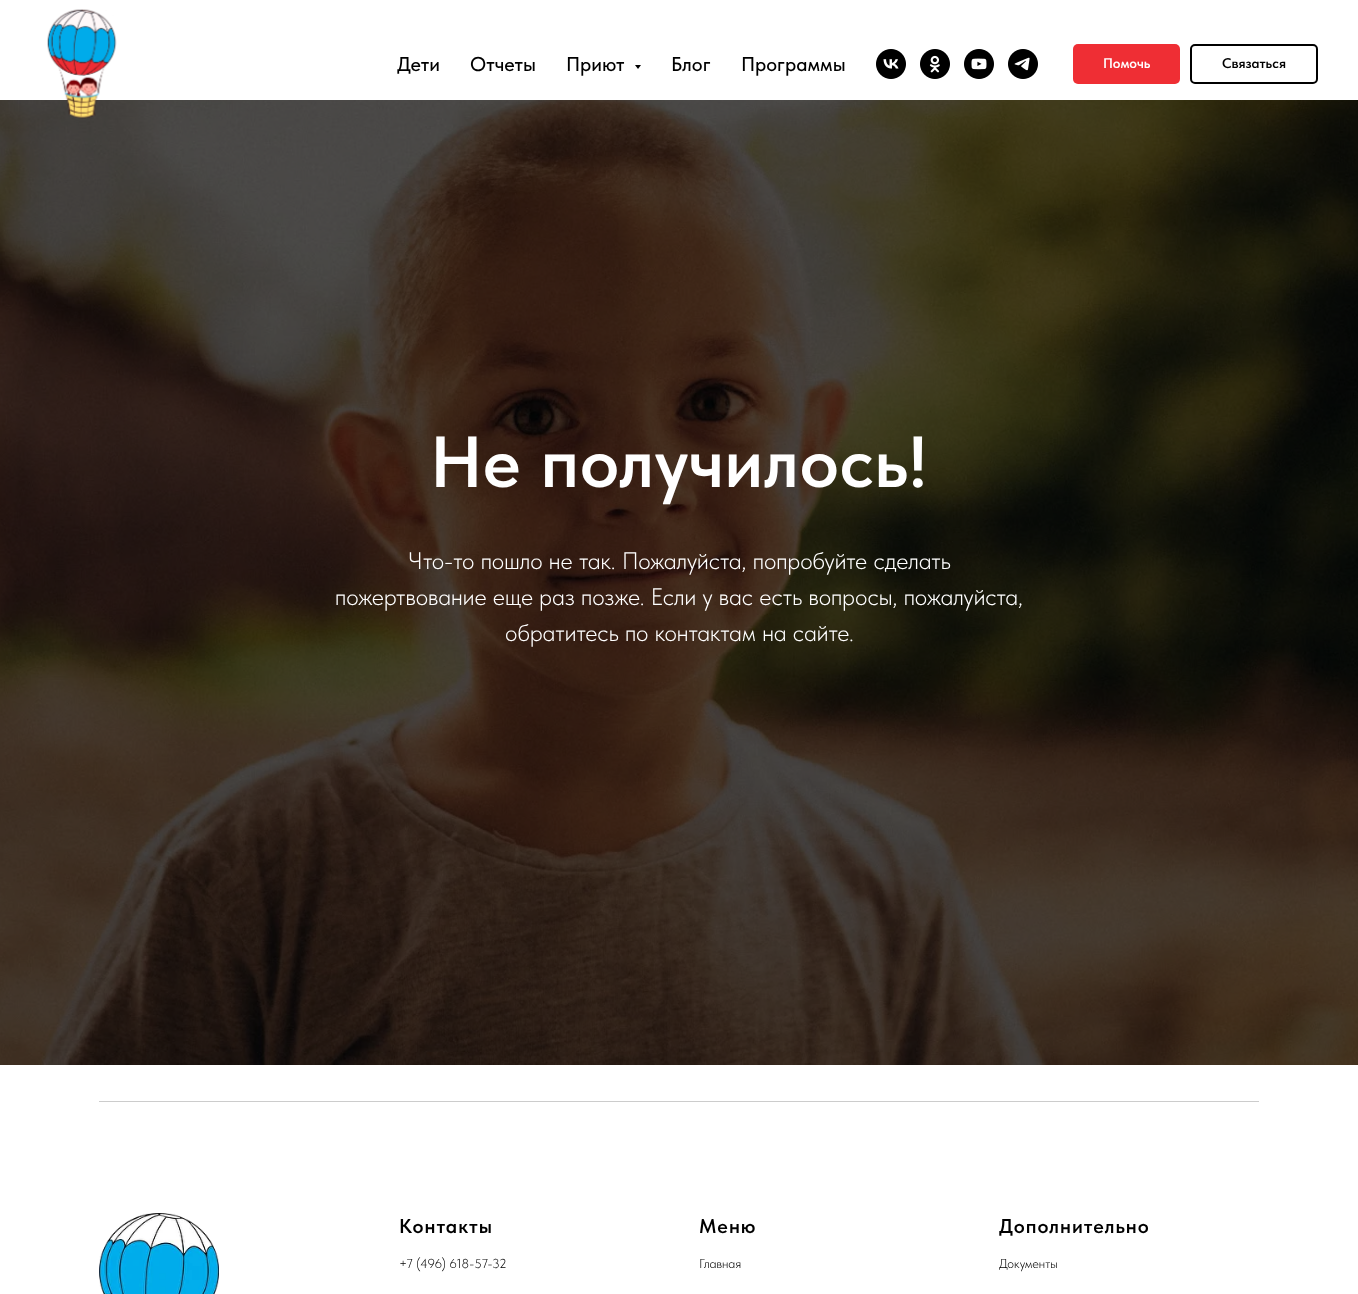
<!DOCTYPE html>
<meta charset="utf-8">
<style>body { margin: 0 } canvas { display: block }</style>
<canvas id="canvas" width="1358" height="1294"></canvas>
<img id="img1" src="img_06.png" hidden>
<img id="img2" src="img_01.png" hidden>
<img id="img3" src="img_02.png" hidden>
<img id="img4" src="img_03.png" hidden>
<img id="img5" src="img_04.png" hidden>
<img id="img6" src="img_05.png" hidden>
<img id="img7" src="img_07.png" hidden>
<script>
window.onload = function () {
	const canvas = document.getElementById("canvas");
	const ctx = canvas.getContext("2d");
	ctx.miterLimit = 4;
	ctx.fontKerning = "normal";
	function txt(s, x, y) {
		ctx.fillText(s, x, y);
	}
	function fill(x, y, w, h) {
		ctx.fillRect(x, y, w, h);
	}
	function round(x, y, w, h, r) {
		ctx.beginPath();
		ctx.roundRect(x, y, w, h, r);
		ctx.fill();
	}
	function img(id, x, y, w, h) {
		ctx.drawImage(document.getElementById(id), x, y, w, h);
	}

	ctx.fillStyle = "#FFFFFF";
	fill(0, 0, 1358, 1294);
	img("img1", 0, 100, 1358, 965);
	img("img2", 47, 9, 70, 110);
	ctx.fillStyle = "#000000";
	ctx.beginPath();
	ctx.moveTo(635, 65);
	ctx.lineTo(641, 65);
	ctx.lineTo(638, 69);
	ctx.closePath();
	ctx.fill();
	img("img3", 876, 49, 30, 30);
	img("img4", 920, 49, 30, 30);
	img("img5", 964, 49, 30, 30);
	img("img6", 1008, 49, 30, 30);
	ctx.fillStyle = "#EF2E34";
	round(1073, 44, 107, 40, 5);
	ctx.beginPath();
	ctx.roundRect(1191, 45, 126, 38, 4);
	ctx.strokeStyle = "#000000";
	ctx.lineWidth = 2;
	ctx.stroke();
	ctx.fillStyle = "#CCCCCC";
	fill(99, 1101, 1160, 1);
	img("img7", 99, 1213, 120, 81);
	ctx.font = "500 20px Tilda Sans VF";
	ctx.fillStyle = "#000000";
	txt("Дети", 397, 71);
	txt("Отчеты", 470, 71);
	txt("Приют", 566, 71);
	txt("Блог", 671, 71);
	txt("Программы", 741, 71);
	ctx.font = "600 14px Tilda Sans VF";
	ctx.fillStyle = "#FFFFFF";
	txt("Помочь", 1103, 68);
	ctx.fillStyle = "#000000";
	txt("Связаться", 1222, 68);
	ctx.letterSpacing = "0.5px";
	ctx.font = "600 72px Tilda Sans VF";
	ctx.fillStyle = "#FFFFFF";
	txt("Не получилось!", 430, 487);
	ctx.letterSpacing = "0px";
	ctx.font = "300 24px Tilda Sans VF";
	txt("Что-то пошло не так. Пожалуйста, попробуйте сделать", 408, 569);
	txt("пожертвование еще раз позже. Если у вас есть вопросы, пожалуйста,", 335, 605);
	txt("обратитесь по контактам на сайте.", 505, 641);
	ctx.letterSpacing = "1px";
	ctx.font = "600 20px Tilda Sans VF";
	ctx.fillStyle = "#000000";
	txt("Контакты", 399, 1233);
	ctx.letterSpacing = "0px";
	ctx.font = "300 13px Tilda Sans VF";
	txt("+7 (496) 618-57-32", 399, 1268);
	ctx.letterSpacing = "1px";
	ctx.font = "600 20px Tilda Sans VF";
	txt("Меню", 699, 1233);
	ctx.letterSpacing = "0px";
	ctx.font = "300 13px Tilda Sans VF";
	txt("Главная", 699, 1268);
	ctx.letterSpacing = "1px";
	ctx.font = "600 20px Tilda Sans VF";
	txt("Дополнительно", 999, 1233);
	ctx.letterSpacing = "0px";
	ctx.font = "300 13px Tilda Sans VF";
	txt("Документы", 999, 1268);
};
</script>
